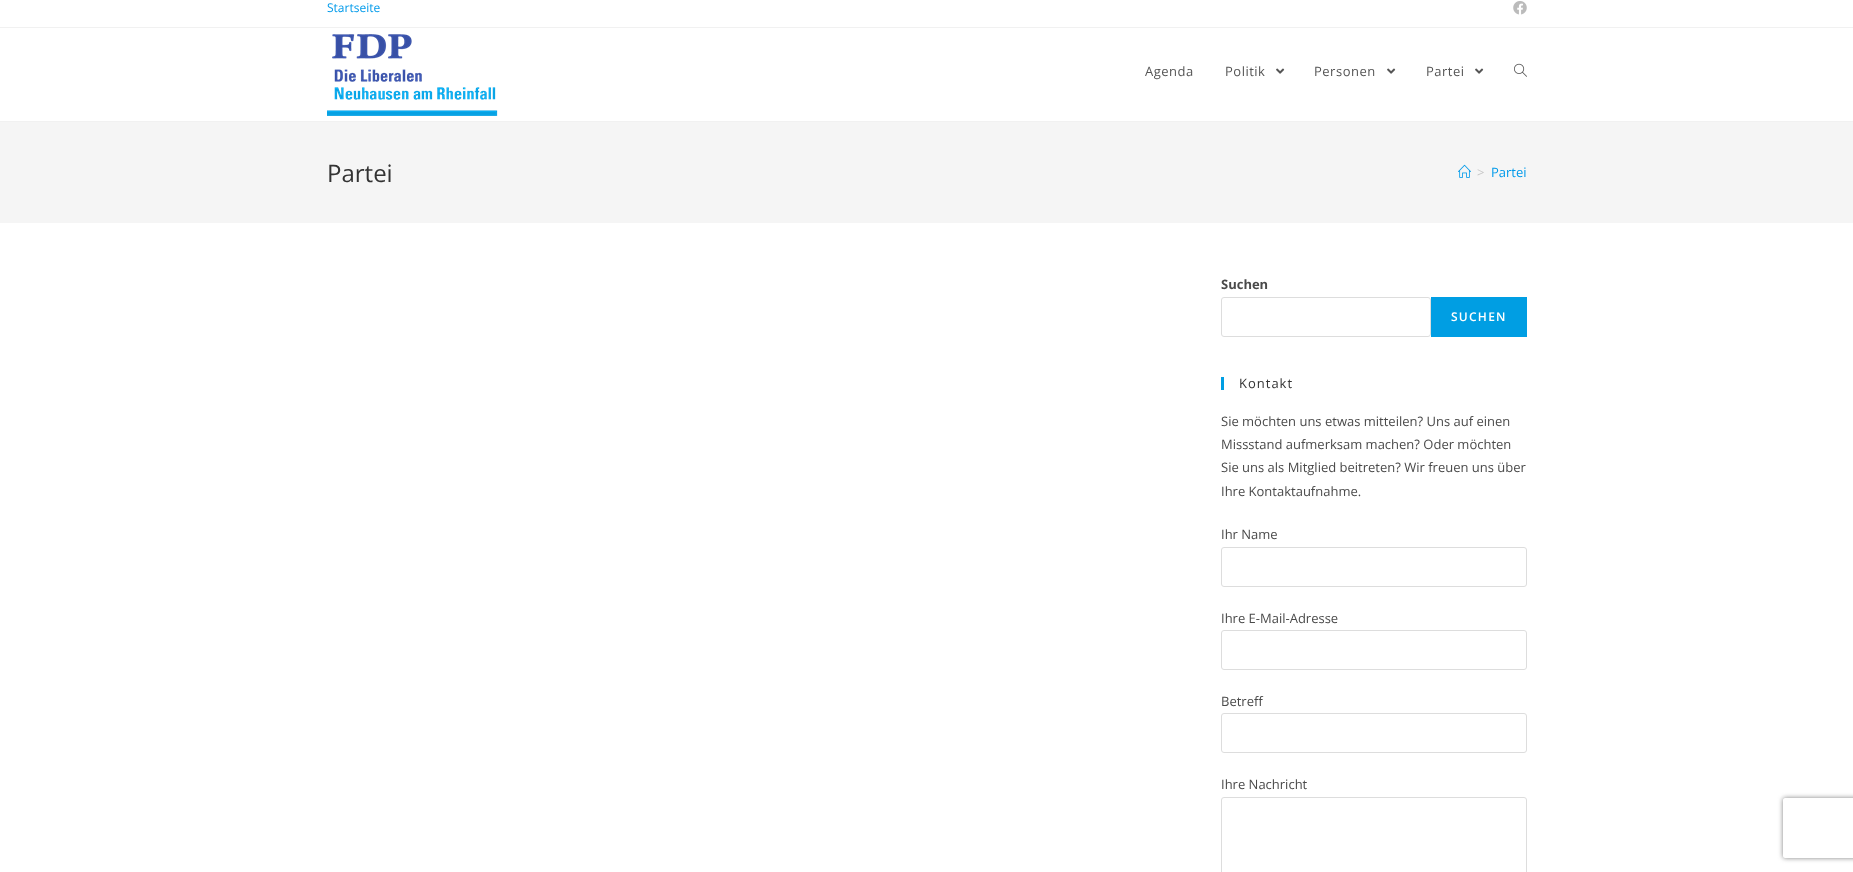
<!DOCTYPE html>
<meta charset="utf-8">
<style>body { margin: 0 } canvas { display: block }</style>
<canvas id="canvas" width="1853" height="872"></canvas>
<img id="img1" src="img_01.png" hidden>
<img id="img2" src="img_02.png" hidden>
<img id="img3" src="img_03.png" hidden>
<img id="img4" src="img_04.png" hidden>
<img id="img5" src="img_05.png" hidden>
<script>
window.onload = function () {
	const canvas = document.getElementById("canvas");
	const ctx = canvas.getContext("2d");
	ctx.miterLimit = 4;
	ctx.fontKerning = "normal";
	function txt(s, x, y) {
		ctx.fillText(s, x, y);
	}
	function fill(x, y, w, h) {
		ctx.fillRect(x, y, w, h);
	}
	function img(id, x, y, w, h) {
		ctx.drawImage(document.getElementById(id), x, y, w, h);
	}

	ctx.fillStyle = "#FFFFFF";
	fill(0, 0, 1853, 872);
	ctx.fillStyle = "#F1F1F1";
	fill(0, 27, 1853, 1);
	img("img1", 1513, 1, 14, 14);
	fill(0, 121, 1853, 1);
	img("img2", 327, 34, 171, 82);
	img("img3", 1276, 68, 9, 6);
	img("img3", 1387, 68, 9, 6);
	img("img3", 1475, 68, 9, 6);
	img("img4", 1514, 63, 13, 14);
	ctx.fillStyle = "#F5F5F5";
	fill(0, 122, 1853, 101);
	img("img5", 1458, 164, 13, 14);
	ctx.beginPath();
	ctx.roundRect(1221.5, 297.5, 209, 39, 2.5);
	ctx.strokeStyle = "#DDDDDD";
	ctx.stroke();
	ctx.fillStyle = "#009EE3";
	fill(1431, 297, 96, 40);
	fill(1221, 377, 3, 13);
	ctx.beginPath();
	ctx.roundRect(1221.5, 547.5, 305, 39, 2.5);
	ctx.stroke();
	ctx.beginPath();
	ctx.roundRect(1221.5, 630.5, 305, 39, 2.5);
	ctx.stroke();
	ctx.beginPath();
	ctx.roundRect(1221.5, 713.5, 305, 39, 2.5);
	ctx.stroke();
	ctx.beginPath();
	ctx.roundRect(1221.5, 797.5, 305, 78, 2.5);
	ctx.stroke();
	ctx.save();
	ctx.beginPath();
	ctx.moveTo(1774, 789);
	ctx.lineTo(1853, 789);
	ctx.lineTo(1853, 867);
	ctx.lineTo(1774, 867);
	ctx.closePath();
	ctx.moveTo(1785, 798);
	ctx.lineTo(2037, 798);
	ctx.bezierCurveTo(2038, 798, 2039, 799, 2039, 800);
	ctx.lineTo(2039, 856);
	ctx.bezierCurveTo(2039, 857, 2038, 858, 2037, 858);
	ctx.lineTo(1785, 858);
	ctx.bezierCurveTo(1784, 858, 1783, 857, 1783, 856);
	ctx.lineTo(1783, 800);
	ctx.bezierCurveTo(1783, 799, 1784, 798, 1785, 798);
	ctx.closePath();
	ctx.clip("evenodd");
	ctx.fillStyle = "#808080";
	ctx.filter = "blur(2.5px)";
	ctx.beginPath();
	ctx.roundRect(1783, 798, 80, 60, 2);
	ctx.fill();
	ctx.filter = "none";
	ctx.restore();
	ctx.font = "12px Open Sans";
	ctx.fillStyle = "#009AEA";
	txt("Startseite", 327, 12);
	ctx.letterSpacing = "0.5px";
	ctx.font = "13px Open Sans";
	ctx.fillStyle = "#555555";
	txt("Agenda", 1145, 76);
	txt("Politik", 1225, 76);
	txt("Personen", 1314, 76);
	txt("Partei", 1426, 76);
	ctx.letterSpacing = "0px";
	ctx.font = "24px Open Sans";
	ctx.fillStyle = "#333333";
	txt("Partei", 327, 182);
	ctx.font = "13px Open Sans";
	ctx.fillStyle = "#C6C6C6";
	txt(">", 1477, 177);
	ctx.fillStyle = "#009AEA";
	txt("Partei", 1491, 177);
	ctx.font = "bold 13px Open Sans";
	ctx.fillStyle = "#4A4A4A";
	txt("Suchen", 1221, 289);
	ctx.letterSpacing = "1.25px";
	ctx.font = "600 12px Open Sans";
	ctx.fillStyle = "#FFFFFF";
	txt("SUCHEN", 1451, 321);
	ctx.letterSpacing = "1px";
	ctx.font = "13px Open Sans";
	ctx.fillStyle = "#333333";
	txt("Kontakt", 1239, 388);
	ctx.letterSpacing = "0px";
	ctx.fillStyle = "#4A4A4A";
	txt("Sie möchten uns etwas mitteilen? Uns auf einen", 1221, 426);
	txt("Missstand aufmerksam machen? Oder möchten", 1221, 449);
	txt("Sie uns als Mitglied beitreten? Wir freuen uns über", 1221, 472);
	txt("Ihre Kontaktaufnahme.", 1221, 496);
	txt("Ihr Name", 1221, 539);
	txt("Ihre E-Mail-Adresse", 1221, 623);
	txt("Betreff", 1221, 706);
	txt("Ihre Nachricht", 1221, 789);
};
</script>
